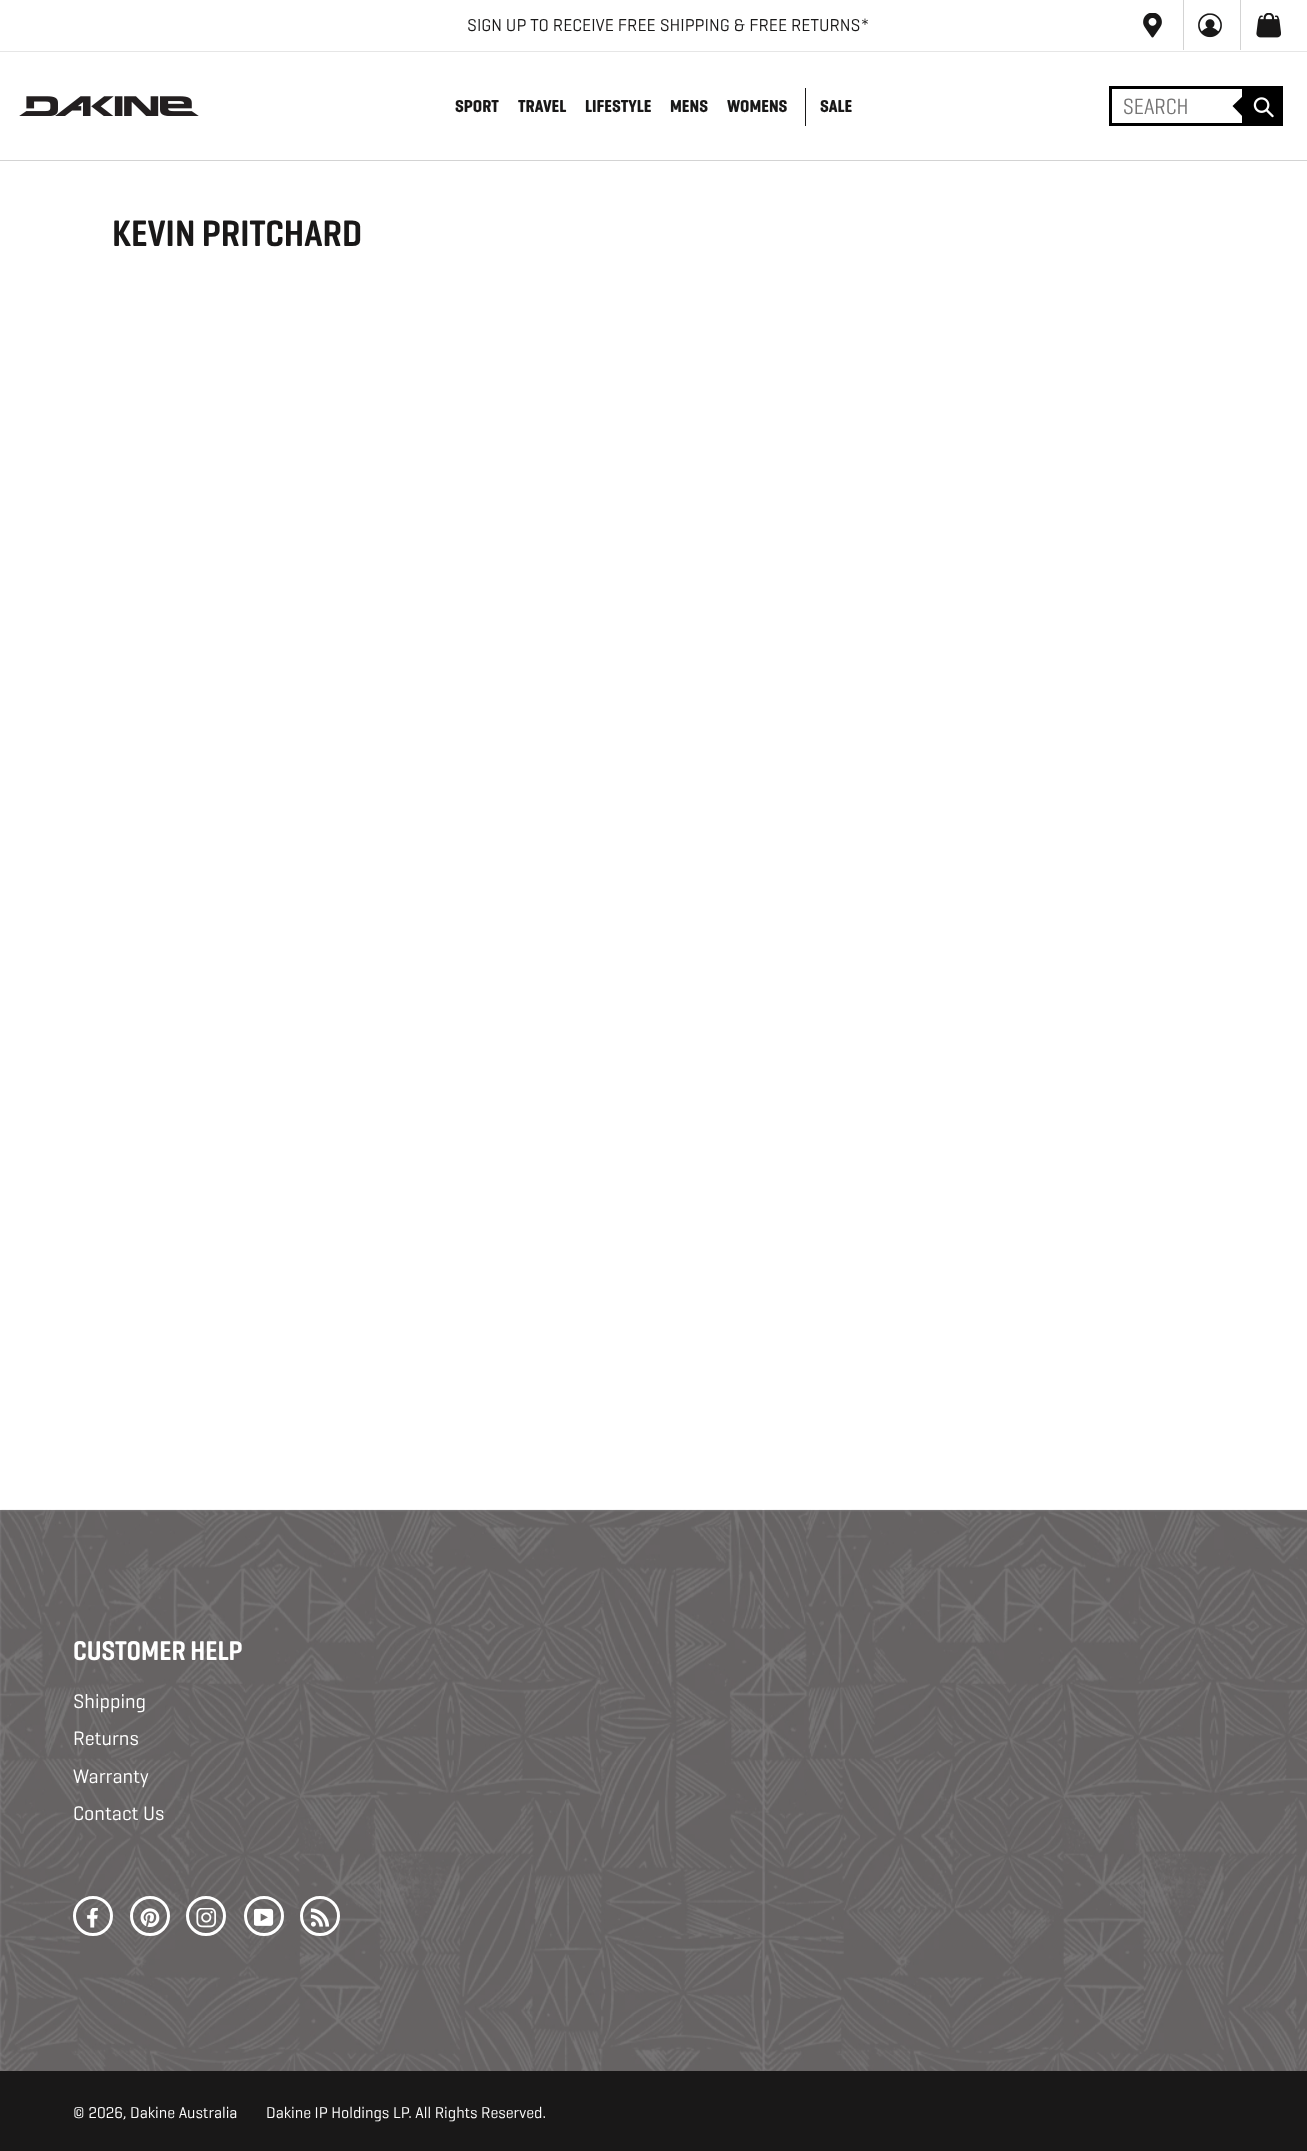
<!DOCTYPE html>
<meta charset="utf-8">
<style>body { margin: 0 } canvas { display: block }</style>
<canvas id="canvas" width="1307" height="2151"></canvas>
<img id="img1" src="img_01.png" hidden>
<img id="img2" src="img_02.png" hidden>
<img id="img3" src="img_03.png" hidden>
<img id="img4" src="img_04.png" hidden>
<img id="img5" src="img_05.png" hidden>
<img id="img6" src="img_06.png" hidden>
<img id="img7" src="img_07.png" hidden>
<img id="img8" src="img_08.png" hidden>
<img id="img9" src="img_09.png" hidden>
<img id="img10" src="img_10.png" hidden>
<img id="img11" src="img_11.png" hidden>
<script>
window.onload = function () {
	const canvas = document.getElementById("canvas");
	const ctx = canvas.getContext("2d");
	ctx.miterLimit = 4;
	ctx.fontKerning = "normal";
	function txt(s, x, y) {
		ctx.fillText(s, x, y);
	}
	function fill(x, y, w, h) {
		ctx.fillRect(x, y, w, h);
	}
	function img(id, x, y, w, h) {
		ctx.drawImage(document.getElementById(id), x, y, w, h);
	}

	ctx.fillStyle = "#FFFFFF";
	fill(0, 0, 1307, 2151);
	ctx.fillStyle = "#E6E6E6";
	fill(0, 51, 1307, 1);
	ctx.fillStyle = "#D3D3D3";
	fill(1183, 0, 1, 50);
	img("img1", 1143, 13, 19, 25);
	fill(1240, 0, 1, 50);
	img("img2", 1198, 13, 24, 25);
	img("img3", 1256, 13, 25, 25);
	fill(0, 160, 1307, 1);
	img("img4", 19, 96, 180, 20);
	ctx.fillStyle = "#191818";
	fill(805, 88, 1, 38);
	ctx.strokeStyle = "#000000";
	ctx.lineWidth = 3;
	ctx.strokeRect(1110.5, 87.5, 133, 37);
	ctx.fillStyle = "#000000";
	fill(1245, 86, 38, 40);
	ctx.beginPath();
	ctx.moveTo(1245, 94);
	ctx.lineTo(1245, 119);
	ctx.lineTo(1232.5, 106);
	ctx.closePath();
	ctx.fill();
	img("img5", 1253, 97, 21, 21);
	ctx.fillStyle = "#848182";
	fill(0, 1510, 1307, 561);
	img("img6", 0, 1509, 1307, 562);
	ctx.beginPath();
	ctx.arc(93, 1916, 18.5, 0, Math.PI * 2);
	ctx.strokeStyle = "#FFFFFF";
	ctx.stroke();
	img("img7", 87, 1908, 11, 20);
	ctx.beginPath();
	ctx.arc(150, 1916, 18.5, 0, Math.PI * 2);
	ctx.stroke();
	img("img8", 140, 1908, 20, 19);
	ctx.beginPath();
	ctx.arc(206, 1916, 18.5, 0, Math.PI * 2);
	ctx.stroke();
	img("img9", 196, 1908, 20, 20);
	ctx.beginPath();
	ctx.arc(264, 1916, 18.5, 0, Math.PI * 2);
	ctx.stroke();
	img("img10", 254, 1908, 20, 18);
	ctx.beginPath();
	ctx.arc(320, 1916, 18.5, 0, Math.PI * 2);
	ctx.stroke();
	img("img11", 310, 1908, 20, 19);
	ctx.fillStyle = "#191818";
	fill(0, 2071, 1307, 80);
	ctx.font = "17.5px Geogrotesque";
	txt("SIGN UP TO RECEIVE FREE SHIPPING & FREE RETURNS*", 467, 31);
	ctx.font = "bold 17.5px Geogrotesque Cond";
	txt("SPORT", 455, 112);
	txt("TRAVEL", 518, 112);
	txt("LIFESTYLE", 585, 112);
	txt("MENS", 670, 112);
	txt("WOMENS", 727, 112);
	txt("SALE", 820, 112);
	ctx.font = "22.5px Geogrotesque Cond";
	ctx.fillStyle = "#757474";
	txt("SEARCH", 1123, 114);
	ctx.font = "600 37.5px Geogrotesque Cond";
	ctx.fillStyle = "#191818";
	txt("KEVIN PRITCHARD", 112, 246);
	ctx.font = "600 27.5px Geogrotesque Cond";
	ctx.fillStyle = "#FFFFFF";
	txt("CUSTOMER HELP", 73, 1660);
	ctx.font = "20px Geogrotesque";
	txt("Shipping", 73, 1708);
	txt("Returns", 73, 1745);
	txt("Warranty", 73, 1783);
	txt("Contact Us", 73, 1820);
	ctx.font = "16px Geogrotesque";
	txt("© 2026, Dakine Australia", 73, 2118);
	txt("Dakine IP Holdings LP. All Rights Reserved.", 266, 2118);
};
</script>
